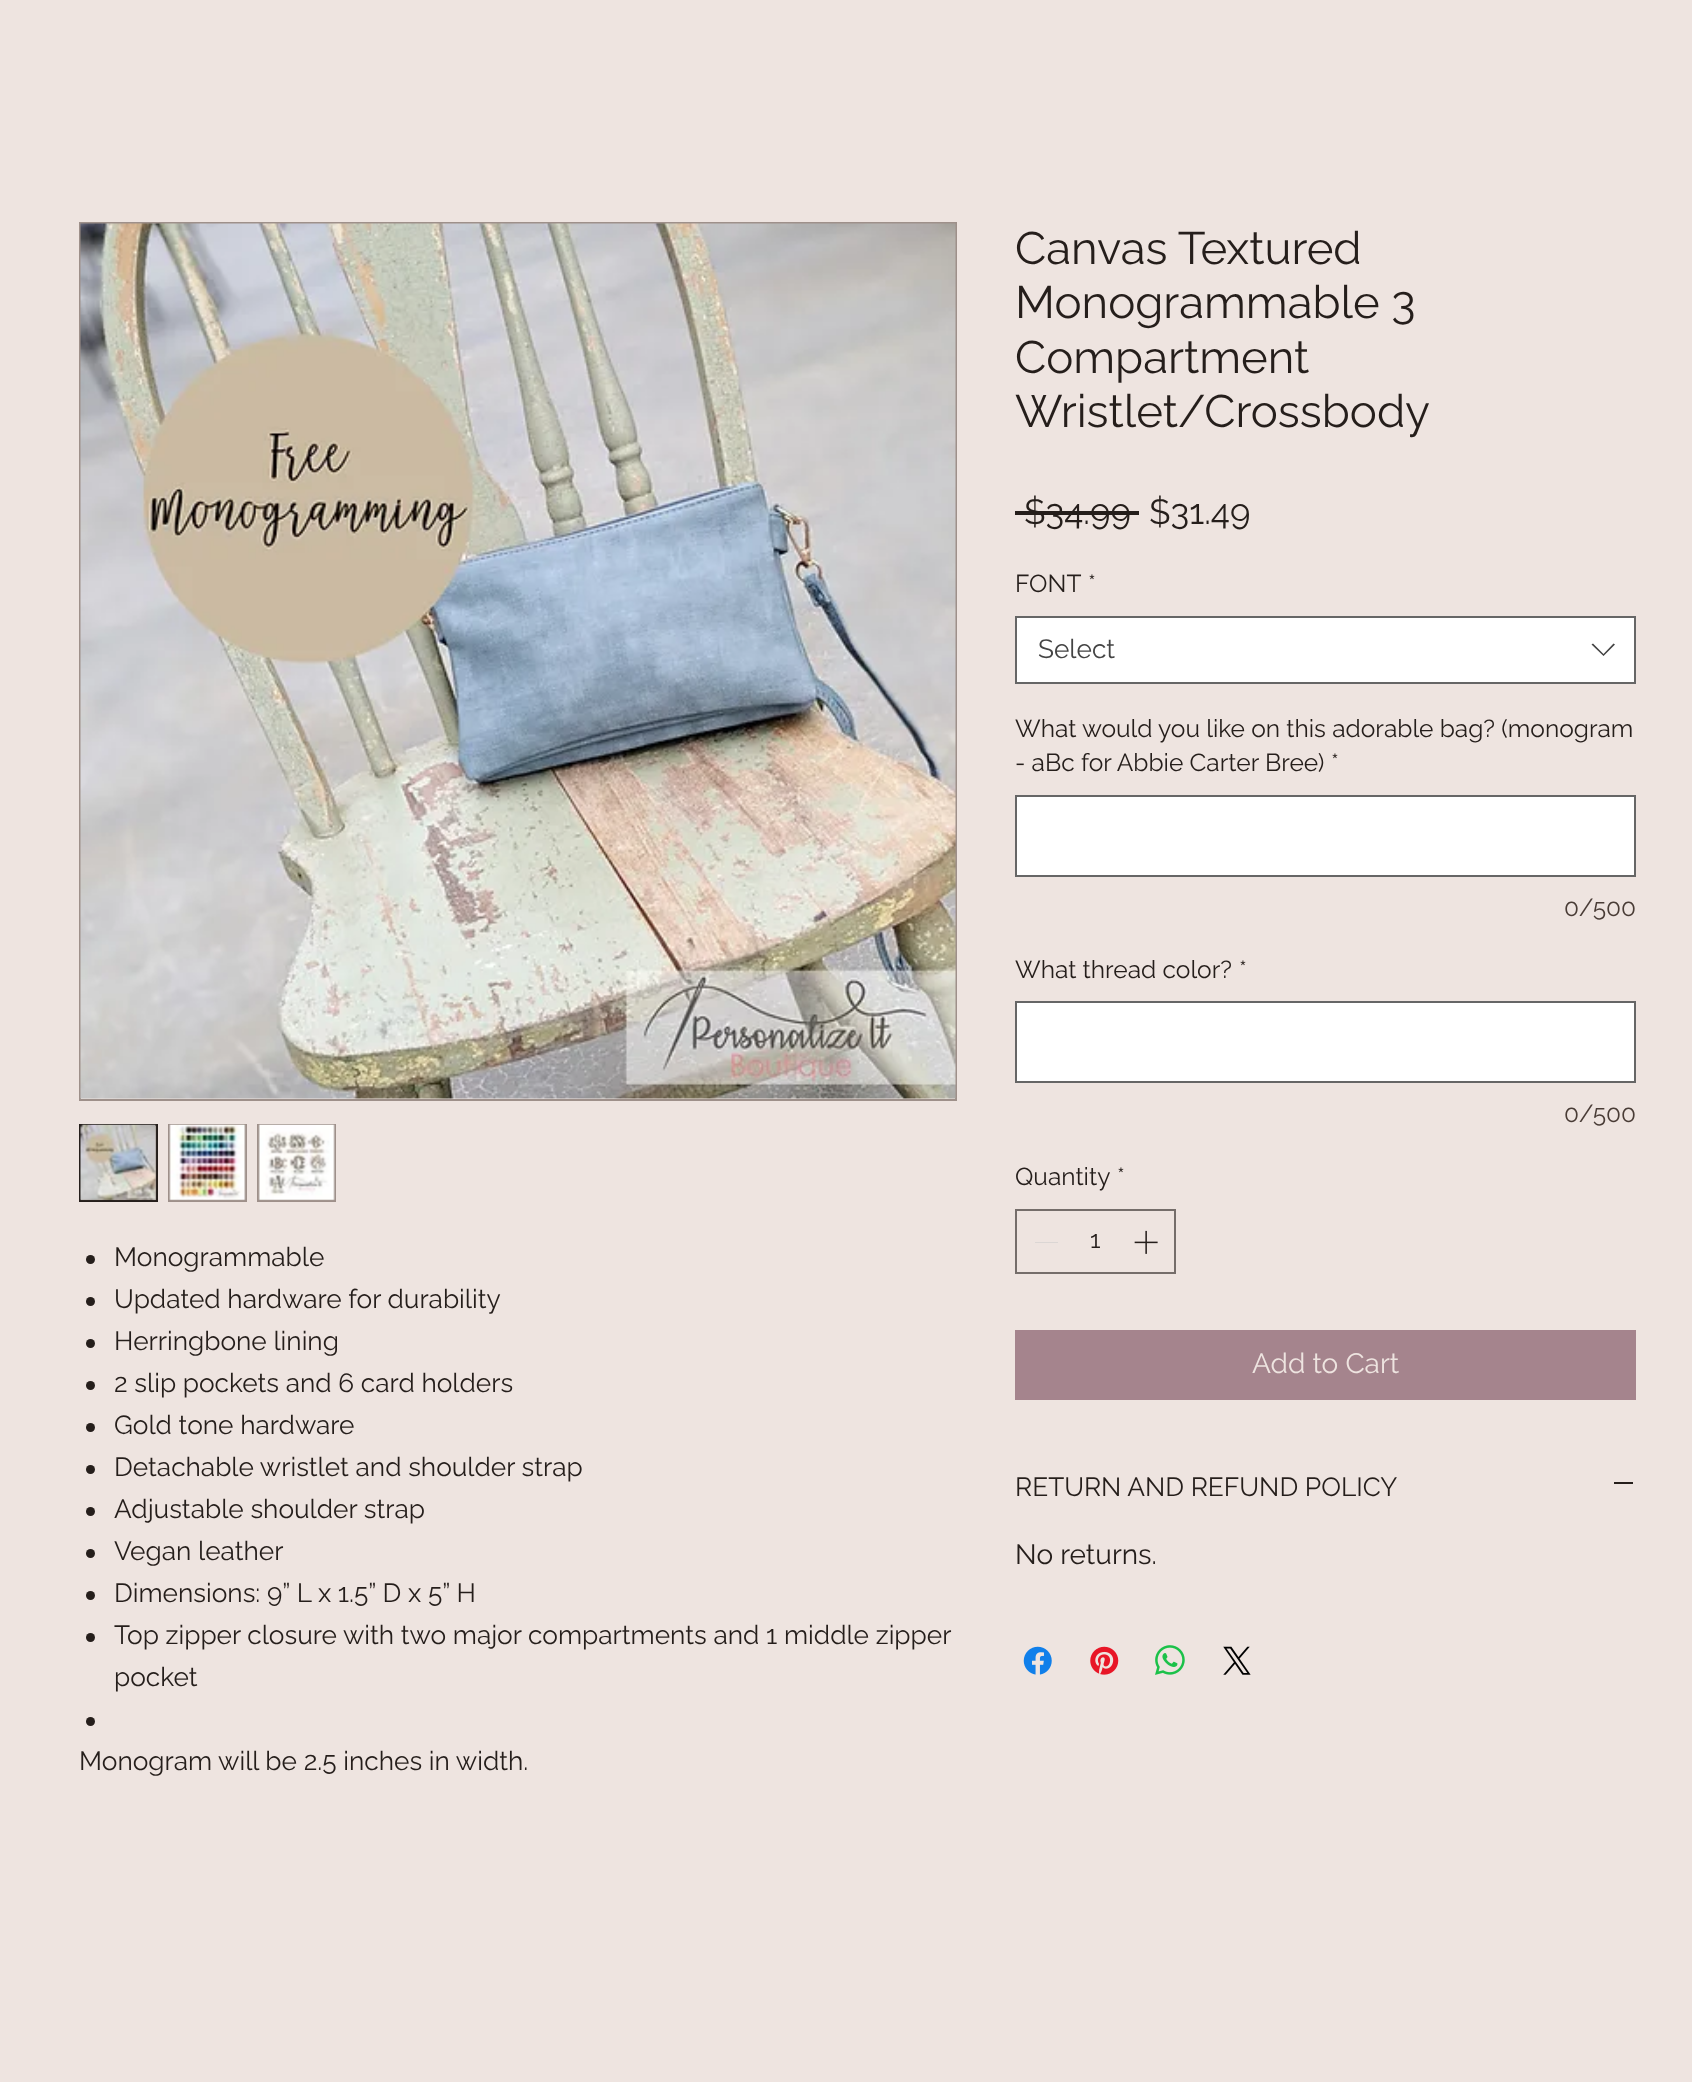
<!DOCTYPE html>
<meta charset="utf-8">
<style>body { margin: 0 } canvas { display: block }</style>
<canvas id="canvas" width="1692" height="2082"></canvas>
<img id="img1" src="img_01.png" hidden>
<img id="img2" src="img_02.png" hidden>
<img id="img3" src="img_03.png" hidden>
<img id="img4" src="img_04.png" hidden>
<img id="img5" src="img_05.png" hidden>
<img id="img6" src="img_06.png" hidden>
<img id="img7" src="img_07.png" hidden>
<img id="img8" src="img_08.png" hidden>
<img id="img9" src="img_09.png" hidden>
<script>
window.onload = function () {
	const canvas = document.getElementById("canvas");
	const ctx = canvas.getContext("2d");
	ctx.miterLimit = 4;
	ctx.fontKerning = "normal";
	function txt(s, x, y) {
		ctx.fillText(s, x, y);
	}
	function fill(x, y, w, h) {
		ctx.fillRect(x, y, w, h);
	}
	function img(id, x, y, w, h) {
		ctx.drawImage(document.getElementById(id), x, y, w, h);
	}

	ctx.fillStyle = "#EEE4E0";
	fill(0, 0, 1692, 2082);
	ctx.strokeStyle = "#9E908A";
	ctx.lineWidth = 2;
	ctx.strokeRect(80, 223, 876, 877);
	img("img1", 80, 223, 876, 876);
	ctx.fillStyle = "#9E908A";
	ctx.beginPath();
	ctx.rect(80, 1125, 77, 76);
	ctx.fill();
	ctx.strokeStyle = "#251E1B";
	ctx.stroke();
	img("img2", 80, 1124, 77, 77);
	fill(168, 1124, 79, 78);
	img("img3", 169, 1124, 77, 77);
	fill(257, 1124, 79, 78);
	img("img4", 258, 1124, 77, 77);
	ctx.fillStyle = "#251E1B";
	ctx.beginPath();
	ctx.arc(90.5, 1259.5, 4.5, 0, Math.PI * 2);
	ctx.fill();
	ctx.beginPath();
	ctx.arc(90.5, 1301.5, 4.5, 0, Math.PI * 2);
	ctx.fill();
	ctx.beginPath();
	ctx.arc(90.5, 1343.5, 4.5, 0, Math.PI * 2);
	ctx.fill();
	ctx.beginPath();
	ctx.arc(90.5, 1385.5, 4.5, 0, Math.PI * 2);
	ctx.fill();
	ctx.beginPath();
	ctx.arc(90.5, 1427.5, 4.5, 0, Math.PI * 2);
	ctx.fill();
	ctx.beginPath();
	ctx.arc(90.5, 1469.5, 4.5, 0, Math.PI * 2);
	ctx.fill();
	ctx.beginPath();
	ctx.arc(90.5, 1511.5, 4.5, 0, Math.PI * 2);
	ctx.fill();
	ctx.beginPath();
	ctx.arc(90.5, 1553.5, 4.5, 0, Math.PI * 2);
	ctx.fill();
	ctx.beginPath();
	ctx.arc(90.5, 1595.5, 4.5, 0, Math.PI * 2);
	ctx.fill();
	ctx.beginPath();
	ctx.arc(90.5, 1637.5, 4.5, 0, Math.PI * 2);
	ctx.fill();
	ctx.beginPath();
	ctx.arc(90.5, 1721.5, 4.5, 0, Math.PI * 2);
	ctx.fill();
	fill(1015, 511, 124, 4);
	ctx.fillStyle = "#FFFFFF";
	ctx.beginPath();
	ctx.rect(1016, 617, 619, 66);
	ctx.fill();
	ctx.strokeStyle = "#666666";
	ctx.stroke();
	ctx.fillStyle = "#444444";
	ctx.beginPath();
	ctx.moveTo(1613.5, 643.5);
	ctx.lineTo(1615, 644.5);
	ctx.lineTo(1603.5, 656);
	ctx.lineTo(1591.5, 644.5);
	ctx.lineTo(1593, 643.5);
	ctx.lineTo(1603.5, 654);
	ctx.closePath();
	ctx.fill("evenodd");
	ctx.fillStyle = "#FFFFFF";
	ctx.beginPath();
	ctx.rect(1016, 796, 619, 80);
	ctx.fill();
	ctx.stroke();
	ctx.beginPath();
	ctx.rect(1016, 1002, 619, 80);
	ctx.fill();
	ctx.stroke();
	ctx.strokeStyle = "#756D6A";
	ctx.strokeRect(1016, 1210, 159, 63);
	ctx.fillStyle = "#DBD6D4";
	fill(1035, 1242, 23, 1);
	img("img5", 1134, 1230, 24, 24);
	ctx.fillStyle = "#A5848D";
	fill(1015, 1330, 621, 70);
	ctx.fillStyle = "#251E1B";
	fill(1614, 1482, 19, 2);
	img("img6", 1023, 1646, 29, 29);
	img("img7", 1090, 1646, 29, 29);
	img("img8", 1155, 1645, 30, 30);
	img("img9", 1223, 1646, 28, 29);
	ctx.font = "26.25px Raleway";
	txt("Monogrammable", 114, 1266);
	txt("Updated hardware for durability", 114, 1308);
	txt("Herringbone lining", 114, 1350);
	txt("2 slip pockets and 6 card holders", 114, 1392);
	txt("Gold tone hardware", 114, 1434);
	txt("Detachable wristlet and shoulder strap", 114, 1476);
	txt("Adjustable shoulder strap", 114, 1518);
	txt("Vegan leather", 114, 1560);
	txt("Dimensions: 9” L x 1.5” D x 5” H", 114, 1602);
	txt("Top zipper closure with two major compartments and 1 middle zipper", 114, 1644);
	txt("pocket", 114, 1686);
	txt("Monogram will be 2.5 inches in width.", 79, 1770);
	ctx.font = "45.5px Raleway";
	txt("Canvas Textured", 1015, 264);
	txt("Monogrammable 3", 1015, 318);
	txt("Compartment", 1015, 373);
	txt("Wristlet/Crossbody", 1015, 427);
	ctx.font = "35px Raleway";
	txt("$34.99", 1024, 524);
	txt("$31.49", 1149, 524);
	ctx.font = "24.5px Raleway";
	txt("FONT", 1015, 592);
	txt("*", 1088, 592);
	ctx.font = "26.25px Raleway";
	ctx.fillStyle = "#444444";
	txt("Select", 1038, 658);
	ctx.font = "24.5px Raleway";
	ctx.fillStyle = "#251E1B";
	txt("What would you like on this adorable bag? (monogram", 1015, 737);
	txt("- aBc for Abbie Carter Bree)", 1015, 771);
	txt("*", 1331, 771);
	ctx.fillStyle = "#493C36";
	txt("0/500", 1564, 916);
	ctx.fillStyle = "#251E1B";
	txt("What thread color?", 1015, 978);
	txt("*", 1239, 978);
	ctx.fillStyle = "#493C36";
	txt("0/500", 1564, 1122);
	ctx.fillStyle = "#251E1B";
	txt("Quantity", 1015, 1185);
	txt("*", 1117, 1185);
	txt("1", 1090, 1248);
	ctx.font = "28px Raleway";
	ctx.fillStyle = "#EEE4E0";
	txt("Add to Cart", 1252, 1373);
	ctx.font = "26.25px Raleway";
	ctx.fillStyle = "#251E1B";
	txt("RETURN AND REFUND POLICY", 1015, 1496);
	ctx.font = "28px Raleway";
	txt("No returns.", 1015, 1564);
};
</script>
